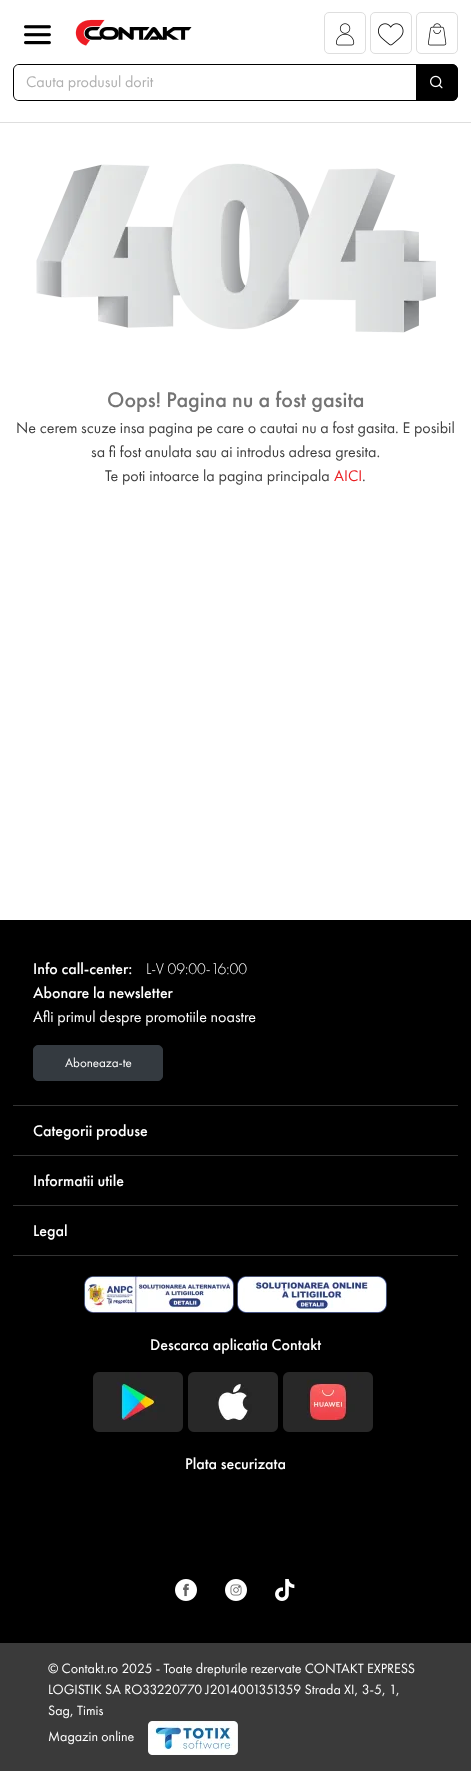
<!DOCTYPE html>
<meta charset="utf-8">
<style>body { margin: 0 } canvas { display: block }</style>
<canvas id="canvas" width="471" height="1771"></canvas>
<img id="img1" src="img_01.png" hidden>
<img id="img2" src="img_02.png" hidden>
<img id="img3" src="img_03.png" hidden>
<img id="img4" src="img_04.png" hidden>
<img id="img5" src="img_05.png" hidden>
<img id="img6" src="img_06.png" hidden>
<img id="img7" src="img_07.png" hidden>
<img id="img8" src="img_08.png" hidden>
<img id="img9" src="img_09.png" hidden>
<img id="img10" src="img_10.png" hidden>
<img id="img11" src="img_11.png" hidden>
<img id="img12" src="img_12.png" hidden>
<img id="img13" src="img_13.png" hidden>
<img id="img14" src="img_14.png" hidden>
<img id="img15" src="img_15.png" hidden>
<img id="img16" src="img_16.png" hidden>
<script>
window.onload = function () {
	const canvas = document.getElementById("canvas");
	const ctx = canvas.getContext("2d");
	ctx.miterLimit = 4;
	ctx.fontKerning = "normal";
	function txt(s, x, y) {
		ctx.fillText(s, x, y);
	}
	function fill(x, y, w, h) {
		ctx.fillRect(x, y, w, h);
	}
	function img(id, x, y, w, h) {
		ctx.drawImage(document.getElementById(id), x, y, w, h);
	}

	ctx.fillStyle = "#FFFFFF";
	fill(0, 0, 471, 1771);
	ctx.fillStyle = "#DEDEDE";
	fill(0, 122, 471, 1);
	img("img1", 24, 25, 27, 20);
	img("img2", 75, 19, 117, 27);
	ctx.beginPath();
	ctx.roundRect(324.5, 12.5, 41, 41, 4.5);
	ctx.strokeStyle = "#DEDEDE";
	ctx.stroke();
	img("img3", 336, 23, 19, 23);
	ctx.beginPath();
	ctx.roundRect(370.5, 12.5, 41, 41, 4.5);
	ctx.stroke();
	img("img4", 378, 23, 26, 23);
	ctx.beginPath();
	ctx.roundRect(416.5, 12.5, 41, 41, 4.5);
	ctx.stroke();
	img("img5", 428, 23, 19, 23);
	ctx.fillStyle = "#000000";
	ctx.beginPath();
	ctx.roundRect(416, 64, 42, 37, [0, 6, 6, 0]);
	ctx.fill();
	ctx.beginPath();
	ctx.moveTo(416, 64);
	ctx.lineTo(452, 64);
	ctx.bezierCurveTo(455, 64, 458, 67, 458, 70);
	ctx.lineTo(458, 95);
	ctx.bezierCurveTo(458, 98, 455, 101, 452, 101);
	ctx.lineTo(416, 101);
	ctx.closePath();
	ctx.moveTo(416, 65);
	ctx.lineTo(452, 65);
	ctx.bezierCurveTo(455, 65, 457, 67, 457, 70);
	ctx.lineTo(457, 95);
	ctx.bezierCurveTo(457, 98, 455, 100, 452, 100);
	ctx.lineTo(416, 100);
	ctx.closePath();
	ctx.fill("evenodd");
	ctx.beginPath();
	ctx.moveTo(19, 64);
	ctx.lineTo(417, 64);
	ctx.lineTo(417, 101);
	ctx.lineTo(19, 101);
	ctx.bezierCurveTo(16, 101, 13, 98, 13, 95);
	ctx.lineTo(13, 70);
	ctx.bezierCurveTo(13, 67, 16, 64, 19, 64);
	ctx.closePath();
	ctx.moveTo(19, 65);
	ctx.lineTo(417, 65);
	ctx.lineTo(417, 100);
	ctx.lineTo(19, 100);
	ctx.bezierCurveTo(16, 100, 14, 98, 14, 95);
	ctx.lineTo(14, 70);
	ctx.bezierCurveTo(14, 67, 16, 65, 19, 65);
	ctx.closePath();
	ctx.fill("evenodd");
	img("img6", 430, 75, 13, 14);
	img("img7", 36, 163, 400, 170);
	fill(0, 920, 471, 723);
	ctx.fillStyle = "#343A40";
	ctx.beginPath();
	ctx.roundRect(33.5, 1045.5, 129, 35, 4.5);
	ctx.fill();
	ctx.strokeStyle = "#343A40";
	ctx.stroke();
	ctx.fillStyle = "#333333";
	fill(13, 1105, 445, 1);
	fill(13, 1155, 445, 1);
	fill(13, 1205, 445, 1);
	fill(13, 1255, 445, 1);
	img("img8", 84, 1276, 150, 37);
	img("img9", 237, 1276, 150, 37);
	img("img10", 93, 1372, 90, 60);
	img("img11", 188, 1372, 90, 60);
	img("img12", 283, 1372, 90, 60);
	img("img13", 175, 1579, 22, 22);
	img("img14", 225, 1579, 22, 22);
	img("img15", 275, 1579, 20, 22);
	ctx.fillStyle = "#3A3A3A";
	fill(0, 1643, 471, 128);
	img("img16", 148, 1721, 90, 34);
	ctx.font = "16px Futura PT";
	ctx.fillStyle = "#B0B0B0";
	txt("Cauta produsul dorit", 26, 87);
	ctx.font = "500 22px Futura PT";
	ctx.fillStyle = "#747474";
	txt("Oops! Pagina nu a fost gasita", 107, 407);
	ctx.font = "16px Futura PT";
	ctx.fillStyle = "#404040";
	txt("Ne cerem scuze insa pagina pe care o cautai nu a fost gasita. E posibil", 16, 433);
	txt("sa fi fost anulata sau ai introdus adresa gresita.", 91, 457);
	txt("Te poti intoarce la pagina principala", 105, 481);
	ctx.fillStyle = "#EA1E22";
	txt("AICI", 334, 481);
	ctx.fillStyle = "#404040";
	txt(".", 362, 481);
	ctx.font = "500 16px Futura PT";
	ctx.fillStyle = "#FFFFFF";
	txt("Info call-center:", 33, 974);
	ctx.font = "300 16px Futura PT";
	txt("L-V 09:00-16:00", 146, 974);
	ctx.font = "500 16px Futura PT";
	txt("Abonare la newsletter", 33, 998);
	ctx.font = "16px Futura PT";
	txt("Afli primul despre promotiile noastre", 33, 1022);
	ctx.font = "13px Futura PT";
	txt("Aboneaza-te", 65, 1067);
	ctx.font = "500 16px Futura PT";
	txt("Categorii produse", 33, 1136);
	txt("Informatii utile", 33, 1186);
	txt("Legal", 33, 1236);
	txt("Descarca aplicatia Contakt", 150, 1350);
	txt("Plata securizata", 185, 1469);
	ctx.font = "14px Futura PT";
	txt("© Contakt.ro 2025 - Toate drepturile rezervate CONTAKT EXPRESS", 48, 1673);
	txt("LOGISTIK SA RO33220770 J2014001351359 Strada XI, 3-5, 1,", 48, 1694);
	txt("Sag, Timis", 48, 1715);
	txt("Magazin online", 48, 1741);
};
</script>
